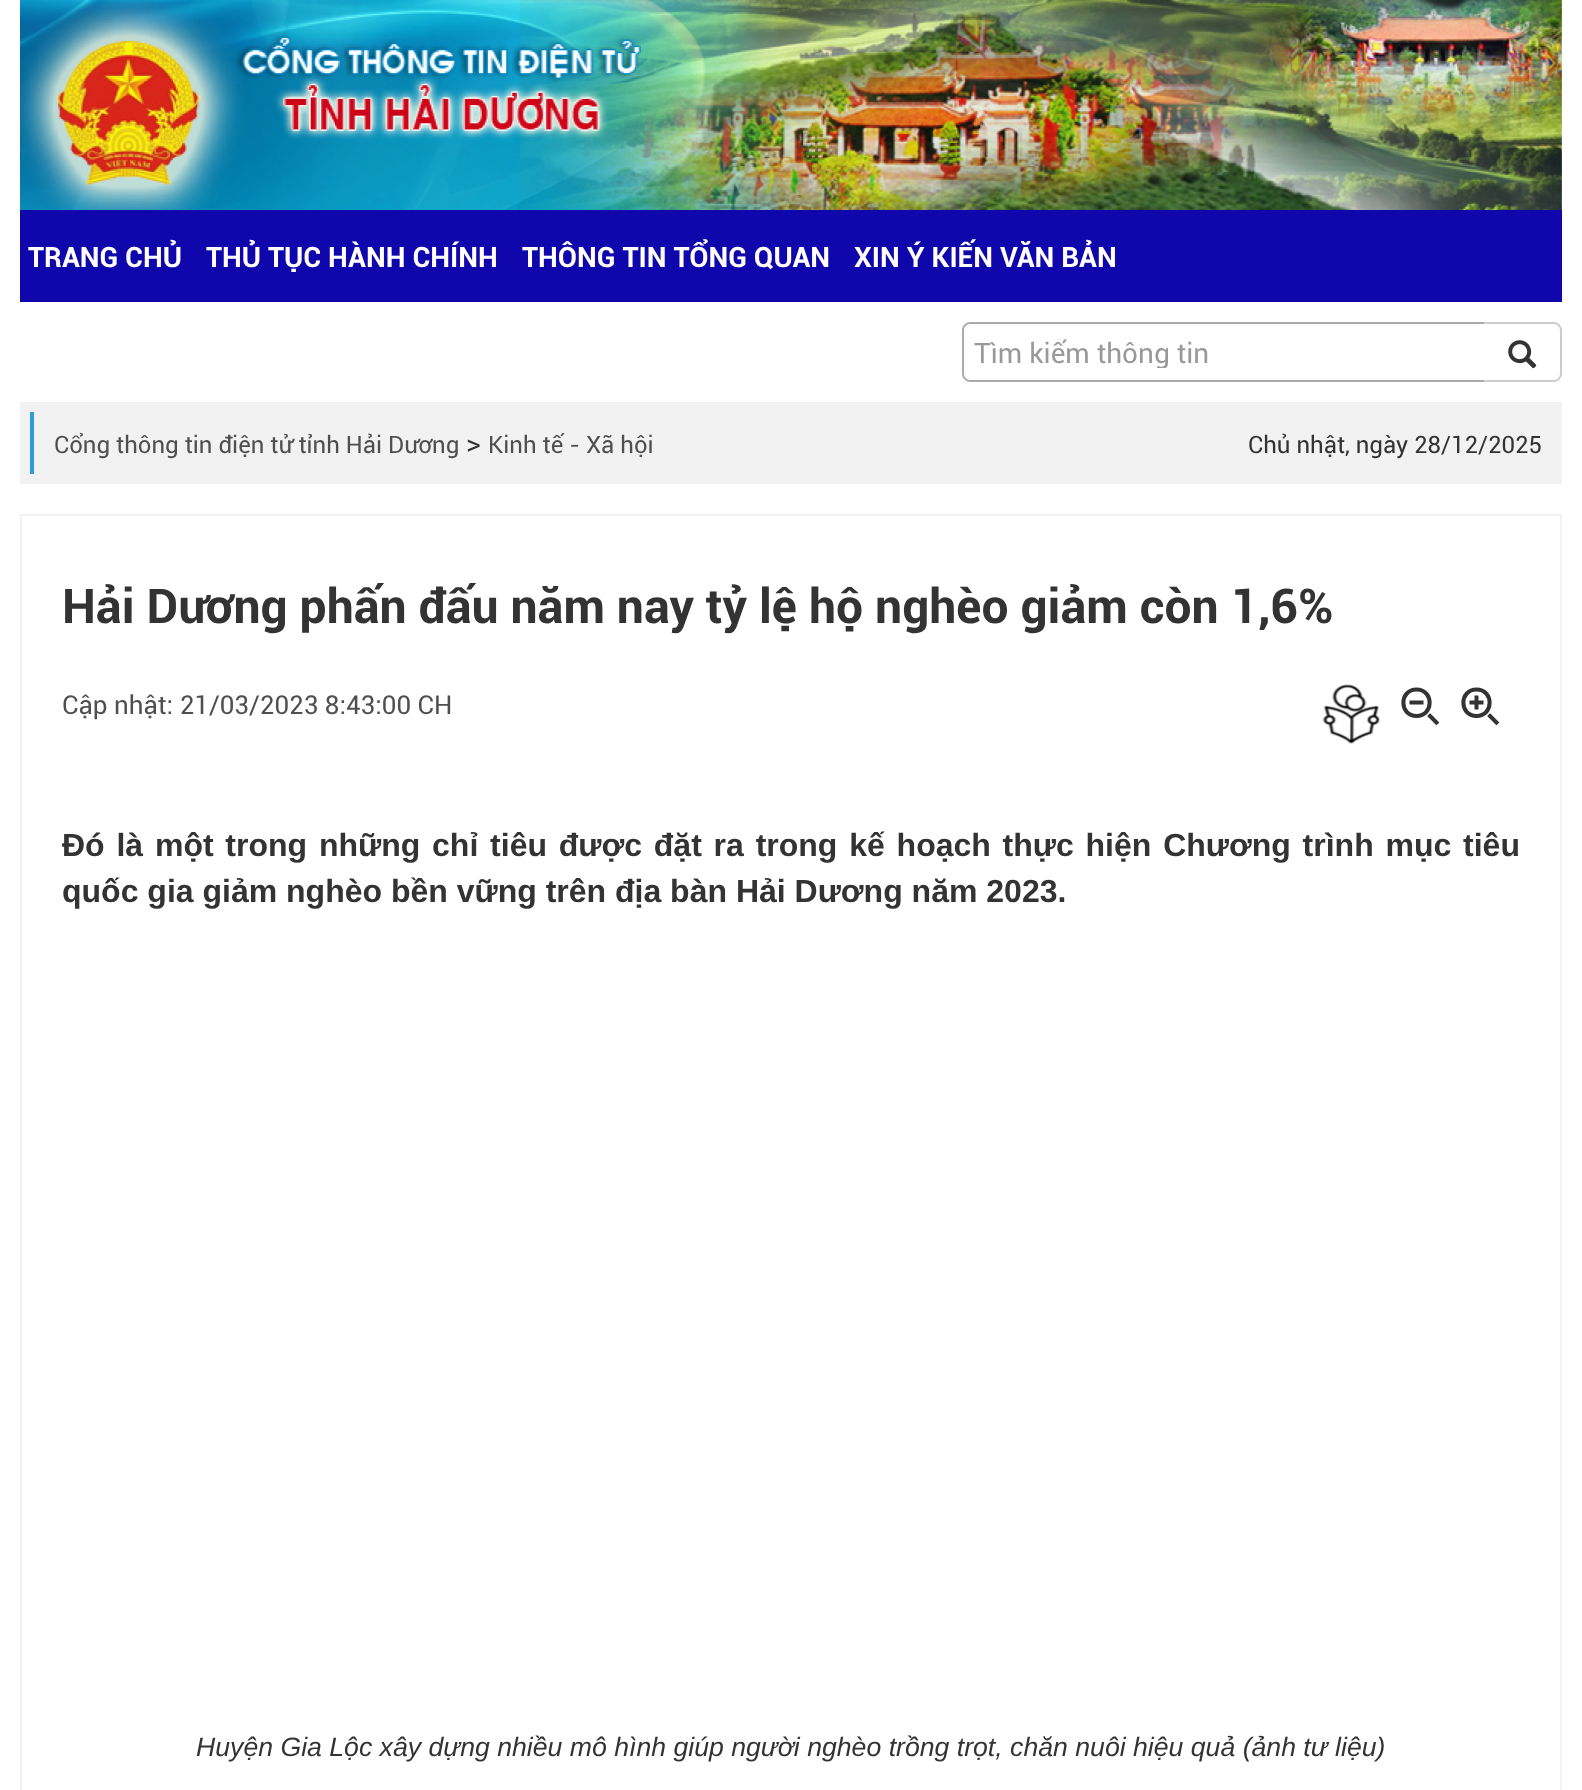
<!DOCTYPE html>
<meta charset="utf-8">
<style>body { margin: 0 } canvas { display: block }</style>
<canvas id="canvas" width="1582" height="1790"></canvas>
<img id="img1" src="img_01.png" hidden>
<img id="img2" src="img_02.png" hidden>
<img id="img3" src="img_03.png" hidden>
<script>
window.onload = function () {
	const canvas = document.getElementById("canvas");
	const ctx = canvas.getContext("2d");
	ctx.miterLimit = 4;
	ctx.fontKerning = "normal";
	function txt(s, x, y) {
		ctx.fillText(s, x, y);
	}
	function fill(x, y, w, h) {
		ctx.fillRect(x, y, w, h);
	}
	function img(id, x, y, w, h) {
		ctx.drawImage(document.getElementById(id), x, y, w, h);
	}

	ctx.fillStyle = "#FFFFFF";
	fill(0, 0, 1582, 1790);
	img("img1", 20, 0, 1542, 210);
	ctx.fillStyle = "#0F07AC";
	fill(20, 210, 1542, 92);
	ctx.fillStyle = "#ABABAB";
	ctx.beginPath();
	ctx.moveTo(970, 322);
	ctx.lineTo(1484, 322);
	ctx.lineTo(1484, 382);
	ctx.lineTo(970, 382);
	ctx.bezierCurveTo(966, 382, 962, 378, 962, 374);
	ctx.lineTo(962, 330);
	ctx.bezierCurveTo(962, 326, 966, 322, 970, 322);
	ctx.closePath();
	ctx.moveTo(970, 324);
	ctx.lineTo(1484, 324);
	ctx.lineTo(1484, 380);
	ctx.lineTo(970, 380);
	ctx.bezierCurveTo(967, 380, 964, 377, 964, 374);
	ctx.lineTo(964, 330);
	ctx.bezierCurveTo(964, 327, 967, 324, 970, 324);
	ctx.closePath();
	ctx.fill("evenodd");
	ctx.fillStyle = "#CCCCCC";
	ctx.beginPath();
	ctx.moveTo(1484, 322);
	ctx.lineTo(1554, 322);
	ctx.bezierCurveTo(1558, 322, 1562, 326, 1562, 330);
	ctx.lineTo(1562, 374);
	ctx.bezierCurveTo(1562, 378, 1558, 382, 1554, 382);
	ctx.lineTo(1484, 382);
	ctx.closePath();
	ctx.moveTo(1484, 324);
	ctx.lineTo(1554, 324);
	ctx.bezierCurveTo(1557, 324, 1560, 327, 1560, 330);
	ctx.lineTo(1560, 374);
	ctx.bezierCurveTo(1560, 377, 1557, 380, 1554, 380);
	ctx.lineTo(1484, 380);
	ctx.closePath();
	ctx.fill("evenodd");
	img("img2", 1508, 340, 29, 29);
	ctx.fillStyle = "#F2F2F2";
	fill(20, 402, 1542, 82);
	ctx.fillStyle = "#2D9CDB";
	fill(30, 412, 4, 62);
	ctx.strokeStyle = "#F2F2F2";
	ctx.lineWidth = 2;
	ctx.strokeRect(21, 515, 1540, 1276);
	img("img3", 1322, 684, 58, 60);
	ctx.beginPath();
	ctx.moveTo(1421.5, 702.5);
	ctx.lineTo(1411.5, 702.5);
	ctx.moveTo(1436.5, 722.5);
	ctx.lineTo(1430, 716);
	ctx.moveTo(1416.5, 716);
	ctx.bezierCurveTo(1434, 716, 1434, 689.5, 1416.5, 689.5);
	ctx.bezierCurveTo(1399, 689.5, 1399, 716, 1416.5, 716);
	ctx.closePath();
	ctx.strokeStyle = "#333333";
	ctx.lineWidth = 4;
	ctx.lineCap = "square";
	ctx.stroke();
	ctx.beginPath();
	ctx.moveTo(1496.5, 722.5);
	ctx.lineTo(1490, 716);
	ctx.moveTo(1476.5, 716);
	ctx.bezierCurveTo(1494, 716, 1494, 689.5, 1476.5, 689.5);
	ctx.bezierCurveTo(1459, 689.5, 1459, 716, 1476.5, 716);
	ctx.closePath();
	ctx.moveTo(1476.5, 697.5);
	ctx.lineTo(1476.5, 707.5);
	ctx.moveTo(1481.5, 702.5);
	ctx.lineTo(1471.5, 702.5);
	ctx.stroke();
	ctx.font = "bold 28px Roboto";
	ctx.fillStyle = "#FFFFFF";
	txt("TRANG CHỦ", 28, 267);
	txt("THỦ TỤC HÀNH CHÍNH", 206, 267);
	txt("THÔNG TIN TỔNG QUAN", 522, 267);
	txt("XIN Ý KIẾN VĂN BẢN", 854, 267);
	ctx.save();
	ctx.beginPath();
	ctx.rect(974, 336, 500, 32);
	ctx.clip();
	ctx.font = "28px Roboto";
	ctx.fillStyle = "#999999";
	txt("Tìm kiếm thông tin", 974, 363);
	ctx.restore();
	ctx.font = "24px Roboto";
	ctx.fillStyle = "#4F4F4F";
	txt("Cổng thông tin điện tử tỉnh Hải Dương", 54, 453);
	ctx.font = "28px Roboto";
	ctx.fillStyle = "#333333";
	txt(">", 466, 453);
	ctx.font = "24px Roboto";
	ctx.fillStyle = "#4F4F4F";
	txt("Kinh tế - Xã hội", 488, 453);
	ctx.fillStyle = "#333333";
	txt("Chủ nhật, ngày 28/12/2025", 1248, 453);
	ctx.font = "bold 48px Roboto";
	txt("Hải Dương phấn đấu năm nay tỷ lệ hộ nghèo giảm còn 1,6%", 62, 623);
	ctx.font = "26px Roboto";
	ctx.fillStyle = "#4F4F4F";
	txt("Cập nhật: 21/03/2023 8:43:00 CH", 62, 714);
	ctx.wordSpacing = "2.9px";
	ctx.font = "bold 32px Liberation Sans";
	ctx.fillStyle = "#333333";
	txt("Đó là một trong những chỉ tiêu được đặt ra trong kế hoạch thực hiện Chương trình mục tiêu", 62, 856);
	ctx.wordSpacing = "0px";
	txt("quốc gia giảm nghèo bền vững trên địa bàn Hải Dương năm 2023.", 62, 902);
	ctx.font = "italic 26.65px Liberation Sans";
	txt("Huyện Gia Lộc xây dựng nhiều mô hình giúp người nghèo trồng trọt, chăn nuôi hiệu quả (ảnh tư liệu)", 196, 1756);
};
</script>
